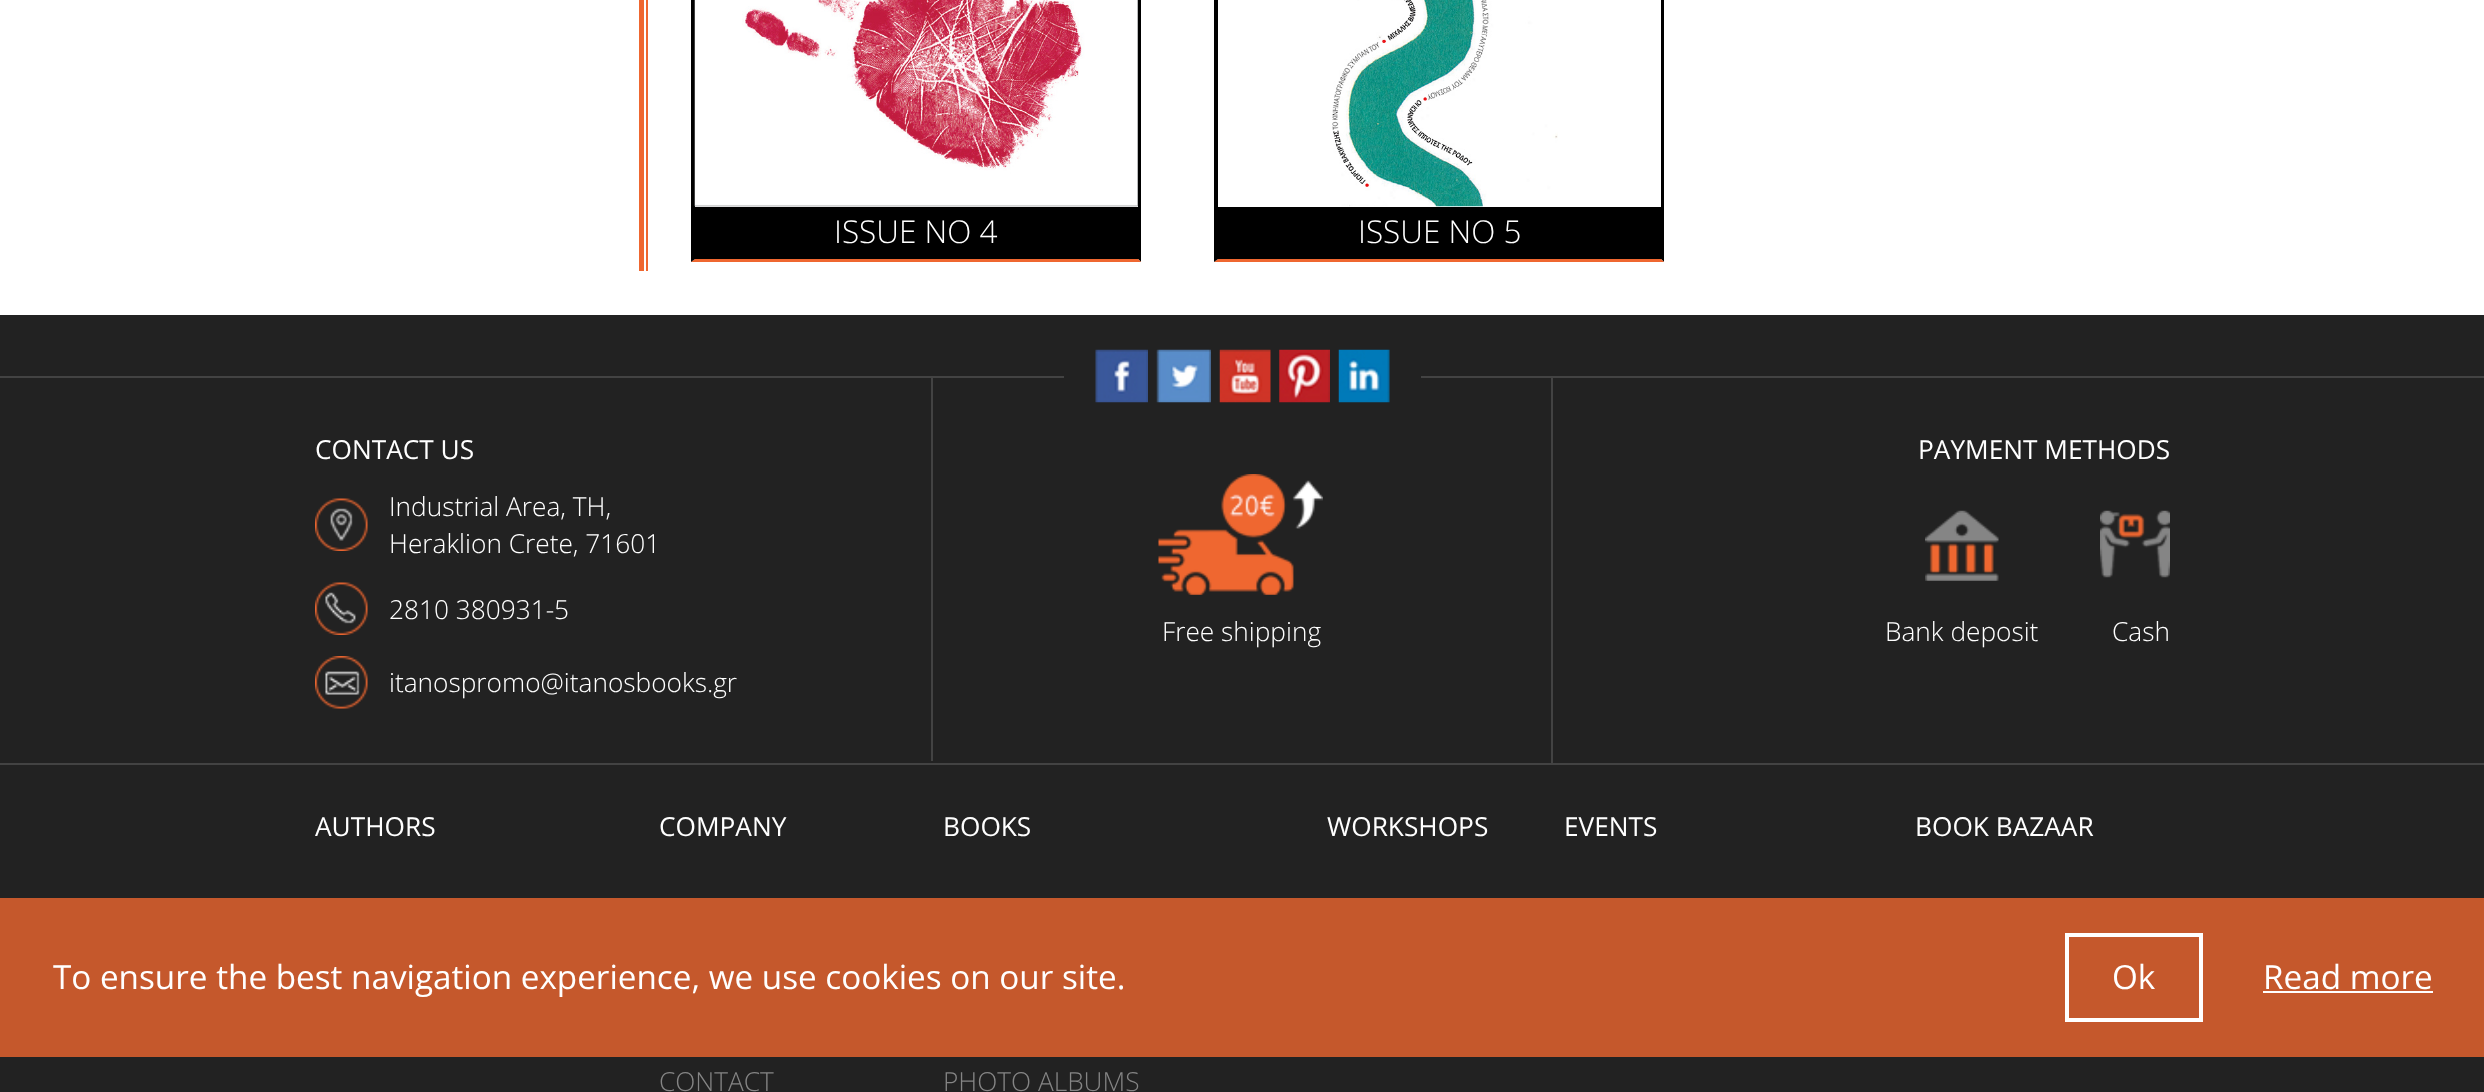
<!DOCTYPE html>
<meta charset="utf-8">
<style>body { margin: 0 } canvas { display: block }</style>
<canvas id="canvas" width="2484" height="1092"></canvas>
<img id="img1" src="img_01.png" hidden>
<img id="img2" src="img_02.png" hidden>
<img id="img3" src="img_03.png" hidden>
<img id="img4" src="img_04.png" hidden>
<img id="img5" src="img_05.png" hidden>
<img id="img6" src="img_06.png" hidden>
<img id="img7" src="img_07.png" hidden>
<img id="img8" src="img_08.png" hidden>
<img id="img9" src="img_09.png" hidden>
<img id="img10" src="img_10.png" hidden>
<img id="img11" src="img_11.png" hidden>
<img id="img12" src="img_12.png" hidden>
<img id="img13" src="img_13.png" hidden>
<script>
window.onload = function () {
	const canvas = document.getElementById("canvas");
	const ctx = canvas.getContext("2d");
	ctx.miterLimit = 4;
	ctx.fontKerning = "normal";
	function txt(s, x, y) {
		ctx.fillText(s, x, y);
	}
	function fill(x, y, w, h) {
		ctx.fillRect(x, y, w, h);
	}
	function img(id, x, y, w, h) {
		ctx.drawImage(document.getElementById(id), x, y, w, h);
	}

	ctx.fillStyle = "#FFFFFF";
	fill(0, 0, 2484, 1092);
	ctx.fillStyle = "#EF6730";
	fill(646, 0, 2, 271);
	fill(639, 0, 5, 271);
	ctx.fillStyle = "#000000";
	ctx.beginPath();
	ctx.moveTo(1141, -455);
	ctx.lineTo(1141, 262);
	ctx.lineTo(1138, 259);
	ctx.lineTo(1138, -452);
	ctx.closePath();
	ctx.fill();
	ctx.fillStyle = "#EF6730";
	ctx.beginPath();
	ctx.moveTo(1141, 262);
	ctx.lineTo(691, 262);
	ctx.lineTo(695, 259);
	ctx.lineTo(1138, 259);
	ctx.closePath();
	ctx.fill();
	ctx.fillStyle = "#000000";
	ctx.beginPath();
	ctx.moveTo(691, 262);
	ctx.lineTo(691, -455);
	ctx.lineTo(695, -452);
	ctx.lineTo(695, 259);
	ctx.closePath();
	ctx.fill();
	img("img1", 694, 0, 444, 207);
	fill(695, 207, 443, 52);
	ctx.beginPath();
	ctx.moveTo(1664, -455);
	ctx.lineTo(1664, 262);
	ctx.lineTo(1661, 259);
	ctx.lineTo(1661, -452);
	ctx.closePath();
	ctx.fill();
	ctx.fillStyle = "#EF6730";
	ctx.beginPath();
	ctx.moveTo(1664, 262);
	ctx.lineTo(1214, 262);
	ctx.lineTo(1218, 259);
	ctx.lineTo(1661, 259);
	ctx.closePath();
	ctx.fill();
	ctx.fillStyle = "#000000";
	ctx.beginPath();
	ctx.moveTo(1214, 262);
	ctx.lineTo(1214, -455);
	ctx.lineTo(1218, -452);
	ctx.lineTo(1218, 259);
	ctx.closePath();
	ctx.fill();
	img("img2", 1332, 0, 226, 207);
	fill(1218, 207, 443, 52);
	ctx.fillStyle = "#222222";
	fill(0, 315, 2484, 777);
	ctx.fillStyle = "#434343";
	fill(0, 376, 2484, 2);
	ctx.fillStyle = "#222222";
	fill(1064, 376, 357, 2);
	img("img3", 1095, 349, 53, 54);
	img("img4", 1156, 349, 55, 54);
	img("img5", 1219, 349, 52, 54);
	img("img6", 1279, 349, 51, 54);
	img("img7", 1338, 349, 52, 54);
	ctx.fillStyle = "#434343";
	fill(931, 378, 2, 383);
	img("img8", 315, 498, 53, 53);
	img("img9", 315, 582, 53, 53);
	img("img10", 315, 656, 53, 53);
	fill(1551, 378, 2, 385);
	img("img11", 1158, 474, 165, 121);
	img("img12", 1925, 510, 74, 71);
	img("img13", 2100, 510, 70, 68);
	fill(0, 763, 2484, 2);
	ctx.fillStyle = "rgba(239, 103, 48, 0.8)";
	fill(0, 898, 2484, 159);
	ctx.strokeStyle = "#FFFFFF";
	ctx.lineWidth = 4;
	ctx.strokeRect(2067, 935, 134, 85);
	ctx.fillStyle = "#FFFFFF";
	fill(2263, 991, 170, 2);
	ctx.font = "300 31.5px Open Sans";
	txt("ISSUE NO 4", 834, 243);
	txt("ISSUE NO 5", 1358, 243);
	ctx.font = "26.25px Open Sans";
	txt("CONTACT US", 315, 459);
	ctx.font = "300 26.25px Open Sans";
	txt("Industrial Area, TH,", 389, 516);
	txt("Heraklion Crete, 71601", 389, 553);
	txt("2810 380931-5", 389, 619);
	txt("itanospromo@itanosbooks.gr", 389, 692);
	txt("Free shipping", 1162, 641);
	ctx.font = "26.25px Open Sans";
	txt("PAYMENT METHODS", 1918, 459);
	ctx.font = "300 26.25px Open Sans";
	txt("Bank deposit", 1885, 641);
	txt("Cash", 2112, 641);
	ctx.font = "26.25px Open Sans";
	txt("AUTHORS", 315, 836);
	txt("COMPANY", 659, 836);
	ctx.font = "300 26.25px Open Sans";
	ctx.fillStyle = "#858585";
	txt("CONTACT", 659, 1091);
	ctx.font = "26.25px Open Sans";
	ctx.fillStyle = "#FFFFFF";
	txt("BOOKS", 943, 836);
	ctx.font = "300 26.25px Open Sans";
	ctx.fillStyle = "#858585";
	txt("PHOTO ALBUMS", 943, 1091);
	ctx.font = "26.25px Open Sans";
	ctx.fillStyle = "#FFFFFF";
	txt("WORKSHOPS", 1327, 836);
	txt("EVENTS", 1564, 836);
	txt("BOOK BAZAAR", 1915, 836);
	ctx.font = "33.25px Open Sans";
	txt("To ensure the best navigation experience, we use cookies on our site.", 53, 989);
	txt("Ok", 2112, 989);
	txt("Read more", 2263, 989);
};
</script>
